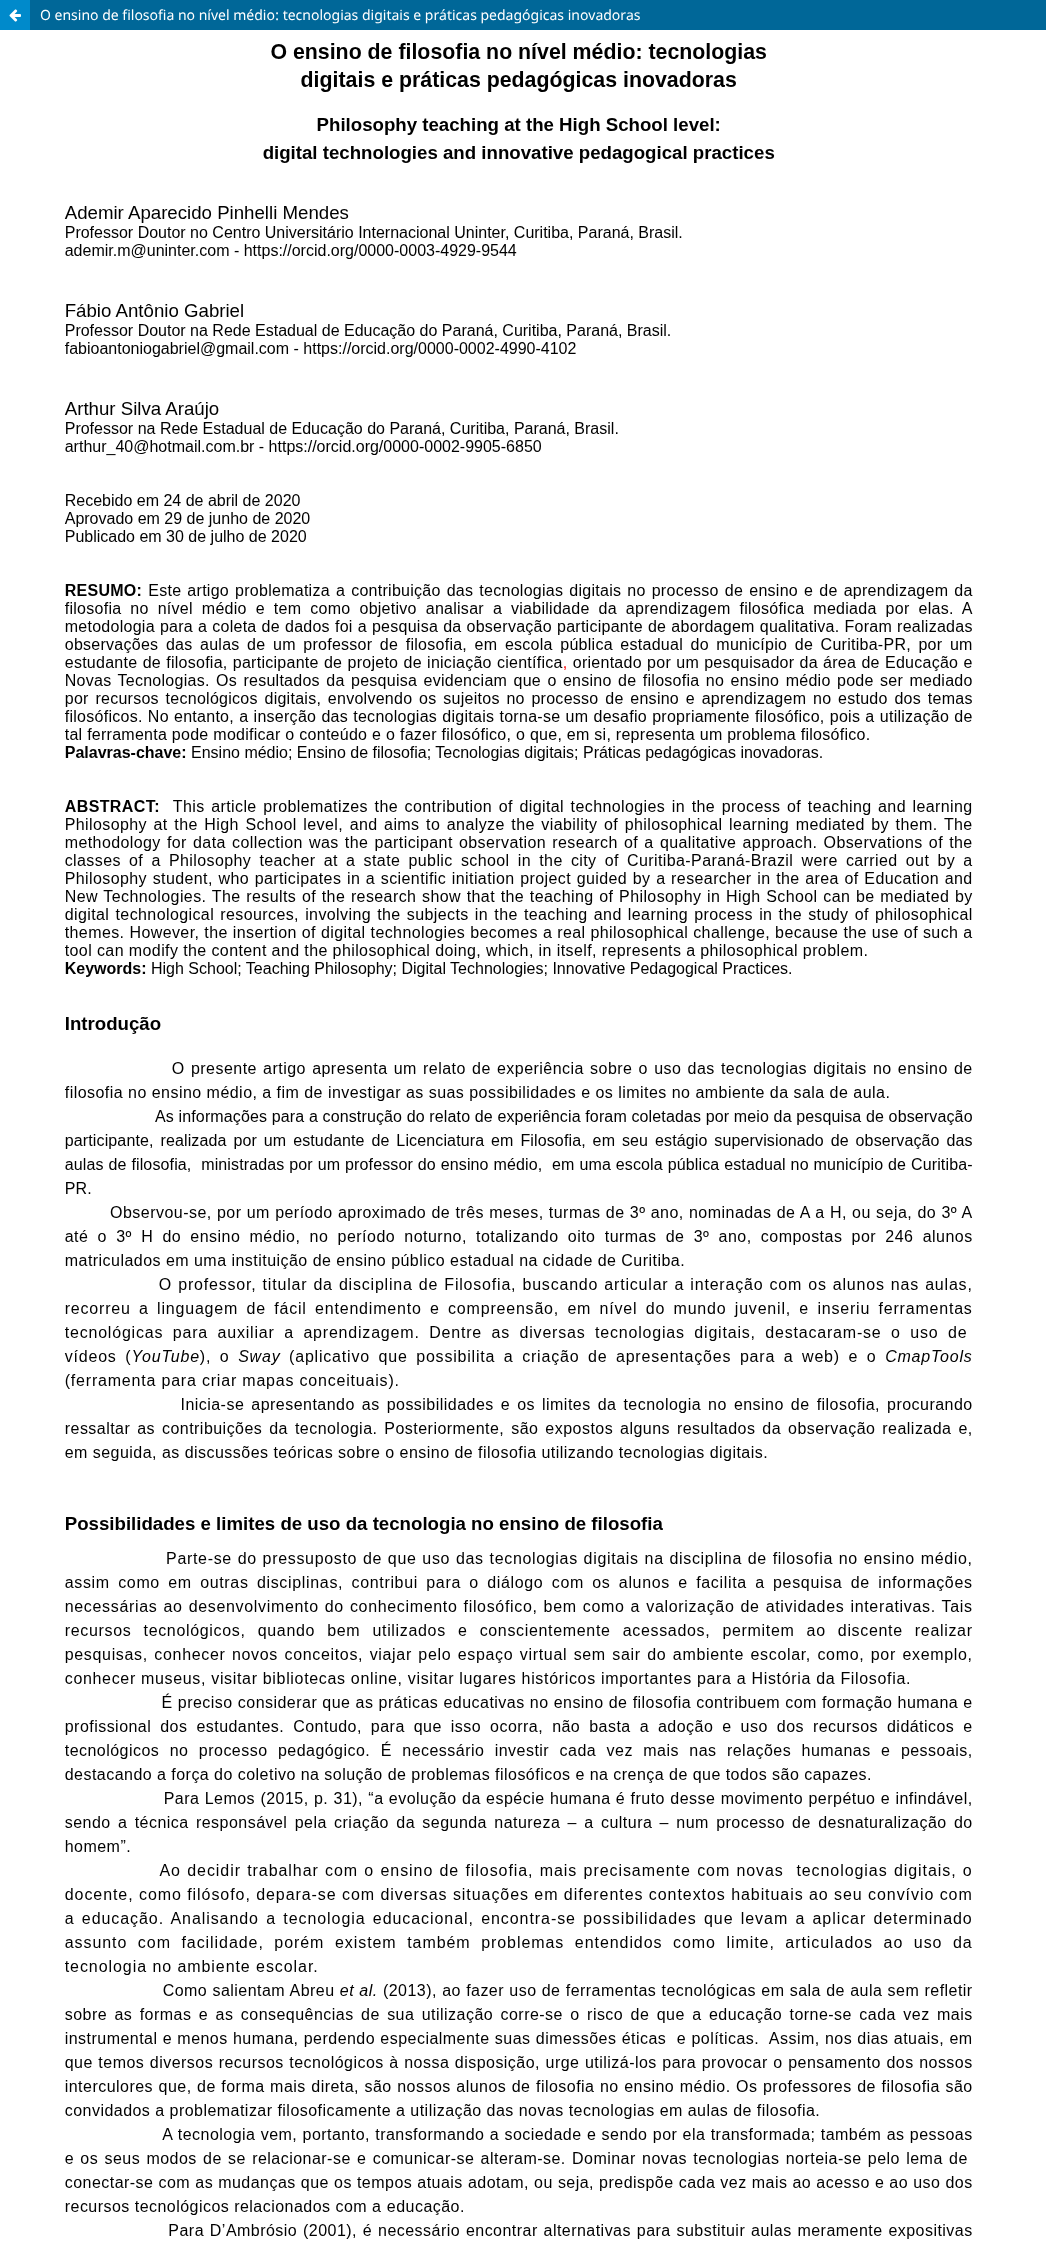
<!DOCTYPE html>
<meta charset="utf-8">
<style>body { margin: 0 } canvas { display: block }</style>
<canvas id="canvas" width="1046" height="2245"></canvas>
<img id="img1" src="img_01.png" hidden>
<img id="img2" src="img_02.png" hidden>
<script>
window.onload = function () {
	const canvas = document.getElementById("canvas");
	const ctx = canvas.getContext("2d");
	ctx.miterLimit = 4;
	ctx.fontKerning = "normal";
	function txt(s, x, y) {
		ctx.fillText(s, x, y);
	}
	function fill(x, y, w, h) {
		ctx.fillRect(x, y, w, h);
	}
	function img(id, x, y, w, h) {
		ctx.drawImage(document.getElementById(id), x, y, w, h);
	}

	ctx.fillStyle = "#FFFFFF";
	fill(0, 0, 1046, 2245);
	ctx.fillStyle = "#006798";
	fill(30, 0, 1016, 30);
	ctx.fillStyle = "#008ACB";
	fill(0, 0, 30, 30);
	img("img1", 9, 9, 12, 13);
	img("img2", 64, 43, 909, 2196);
	ctx.font = "14px Noto Sans";
	ctx.fillStyle = "#FFFFFF";
	txt("O ensino de filosofia no nível médio: tecnologias digitais e práticas pedagógicas inovadoras", 40, 20);
};
</script>
